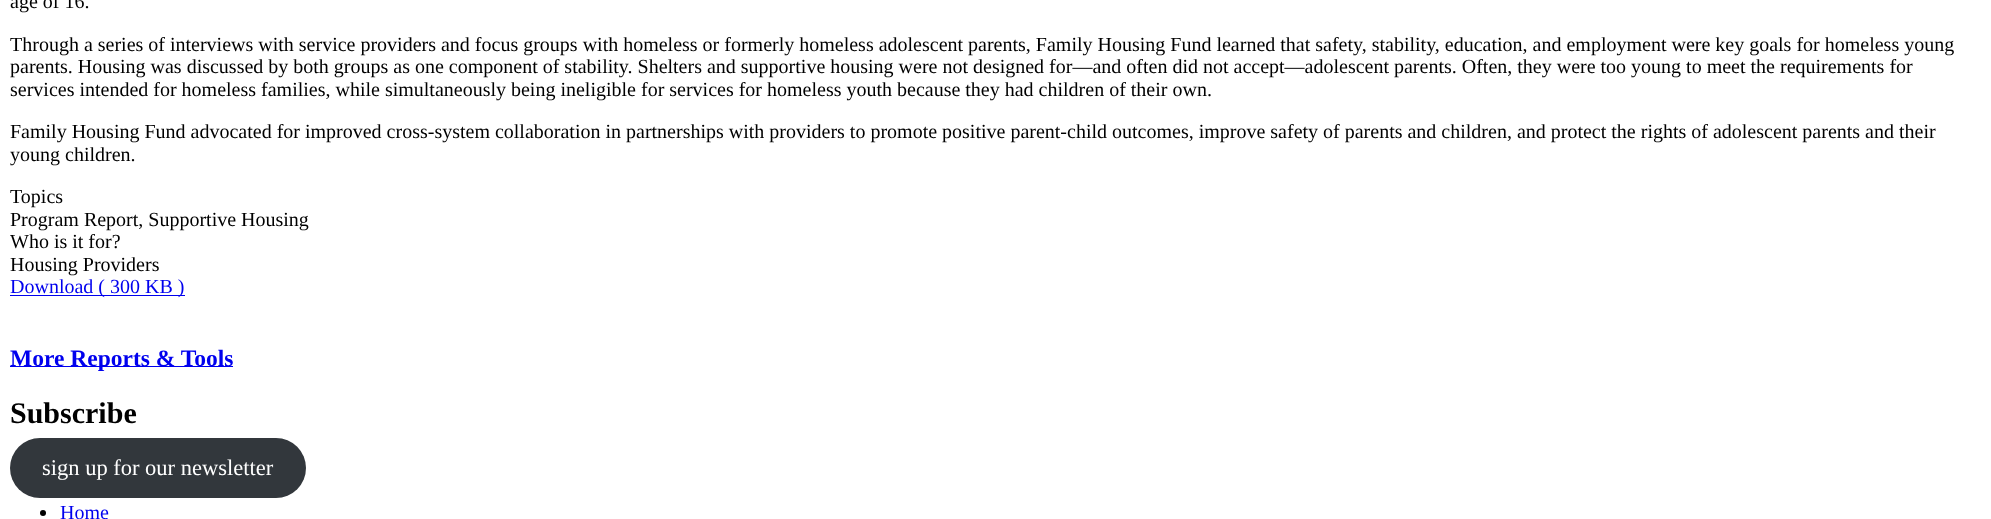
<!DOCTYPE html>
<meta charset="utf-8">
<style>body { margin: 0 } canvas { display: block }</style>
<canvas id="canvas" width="1991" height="519"></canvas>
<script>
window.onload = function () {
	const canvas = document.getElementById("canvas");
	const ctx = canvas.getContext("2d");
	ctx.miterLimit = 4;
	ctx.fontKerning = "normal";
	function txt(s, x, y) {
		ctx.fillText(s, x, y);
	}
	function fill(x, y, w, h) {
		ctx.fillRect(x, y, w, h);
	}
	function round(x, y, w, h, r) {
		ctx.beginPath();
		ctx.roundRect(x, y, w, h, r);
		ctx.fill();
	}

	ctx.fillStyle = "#FFFFFF";
	fill(0, 0, 1991, 519);
	ctx.fillStyle = "#0000EE";
	fill(10, 295, 175, 1);
	fill(10, 366, 223, 1);
	ctx.fillStyle = "#32373C";
	round(10, 438, 296, 60, 30);
	ctx.fillStyle = "#000000";
	ctx.beginPath();
	ctx.arc(43, 513, 3, 0, Math.PI * 2);
	ctx.fill();
	ctx.font = "20px Liberation Serif";
	txt("age of 16.", 10, 8);
	txt("Through a series of interviews with service providers and focus groups with homeless or formerly homeless adolescent parents, Family Housing Fund learned that safety, stability, education, and employment were key goals for homeless young", 10, 51);
	txt("parents. Housing was discussed by both groups as one component of stability. Shelters and supportive housing were not designed for—and often did not accept—adolescent parents. Often, they were too young to meet the requirements for", 10, 73);
	txt("services intended for homeless families, while simultaneously being ineligible for services for homeless youth because they had children of their own.", 10, 96);
	txt("Family Housing Fund advocated for improved cross-system collaboration in partnerships with providers to promote positive parent-child outcomes, improve safety of parents and children, and protect the rights of adolescent parents and their", 10, 138);
	txt("young children.", 10, 161);
	txt("Topics", 10, 203);
	txt("Program Report, Supportive Housing", 10, 226);
	txt("Who is it for?", 10, 248);
	txt("Housing Providers", 10, 271);
	ctx.fillStyle = "#0000EE";
	txt("Download ( 300 KB )", 10, 293);
	ctx.font = "bold 23.5px Liberation Serif";
	txt("More Reports & Tools", 10, 366);
	ctx.font = "bold 30px Liberation Serif";
	ctx.fillStyle = "#000000";
	txt("Subscribe", 10, 423);
	ctx.font = "22.5px Liberation Serif";
	ctx.fillStyle = "#FFFFFF";
	txt("sign up for our newsletter", 42, 475);
	ctx.font = "20px Liberation Serif";
	ctx.fillStyle = "#0000EE";
	txt("Home", 60, 519);
};
</script>
